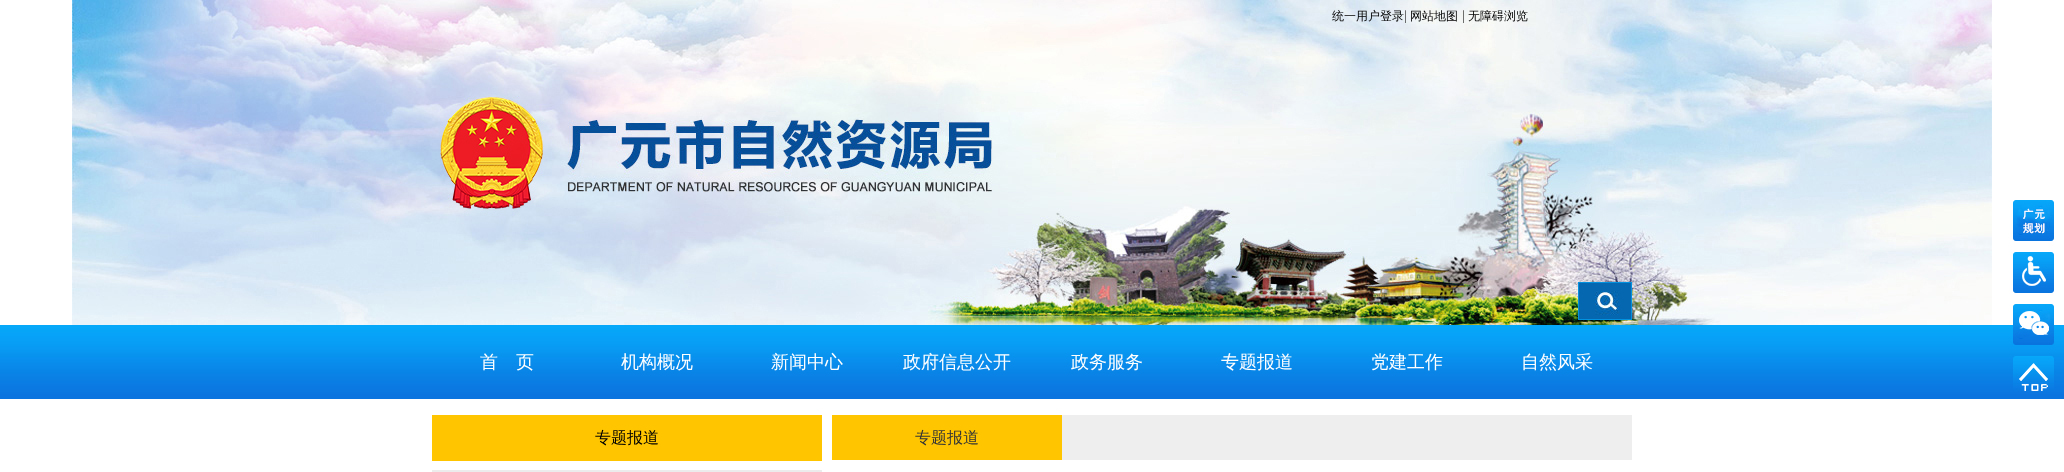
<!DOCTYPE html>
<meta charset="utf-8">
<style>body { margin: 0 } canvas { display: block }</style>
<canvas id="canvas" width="2064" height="472"></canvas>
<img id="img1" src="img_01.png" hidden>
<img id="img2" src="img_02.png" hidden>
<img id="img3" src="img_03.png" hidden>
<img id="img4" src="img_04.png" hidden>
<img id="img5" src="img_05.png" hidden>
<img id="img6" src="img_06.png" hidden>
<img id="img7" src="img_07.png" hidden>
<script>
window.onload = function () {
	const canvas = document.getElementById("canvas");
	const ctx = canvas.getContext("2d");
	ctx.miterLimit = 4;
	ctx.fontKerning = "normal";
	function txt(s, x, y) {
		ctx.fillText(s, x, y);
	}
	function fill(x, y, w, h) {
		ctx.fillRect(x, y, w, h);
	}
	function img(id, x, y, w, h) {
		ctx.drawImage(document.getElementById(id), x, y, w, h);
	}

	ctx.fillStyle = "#FFFFFF";
	fill(0, 0, 2064, 472);
	img("img1", 72, 0, 1920, 325);
	ctx.strokeStyle = "#0291DE";
	ctx.strokeRect(1578.5, 282.5, 53, 37);
	img("img2", 1579, 283, 52, 36);
	img("img3", 0, 325, 2064, 74);
	img("img4", 2013, 200, 41, 41);
	img("img5", 2013, 252, 41, 41);
	img("img6", 2013, 304, 41, 41);
	img("img7", 2013, 356, 41, 35);
	ctx.fillStyle = "#FFC600";
	fill(432, 415, 390, 46);
	ctx.fillStyle = "#EDECEC";
	fill(432, 470, 390, 2);
	ctx.fillStyle = "#EEEEEE";
	fill(1062, 415, 570, 45);
	ctx.fillStyle = "#FFC600";
	fill(832, 415, 230, 45);
	ctx.font = "500 12px WenQuanYi Zen Hei";
	ctx.fillStyle = "#000000";
	txt("统一用户登录", 1332, 20);
	ctx.font = "14px Liberation Serif";
	ctx.fillStyle = "#353535";
	txt("|", 1404, 20);
	ctx.font = "500 12px WenQuanYi Zen Hei";
	ctx.fillStyle = "#000000";
	txt("网站地图", 1410, 20);
	ctx.font = "14px Liberation Serif";
	ctx.fillStyle = "#353535";
	txt("|", 1462, 20);
	ctx.font = "500 12px WenQuanYi Zen Hei";
	ctx.fillStyle = "#000000";
	txt("无障碍浏览", 1468, 20);
	ctx.font = "500 18px WenQuanYi Zen Hei";
	ctx.fillStyle = "#FFFFFF";
	txt("首", 480, 368);
	txt("页", 516, 368);
	txt("机构概况", 621, 368);
	txt("新闻中心", 771, 368);
	txt("政府信息公开", 903, 368);
	txt("政务服务", 1071, 368);
	txt("专题报道", 1221, 368);
	txt("党建工作", 1371, 368);
	txt("自然风采", 1521, 368);
	ctx.font = "500 16px WenQuanYi Zen Hei";
	ctx.fillStyle = "#000000";
	txt("专题报道", 595, 443);
	ctx.fillStyle = "#353535";
	txt("专题报道", 915, 443);
};
</script>
